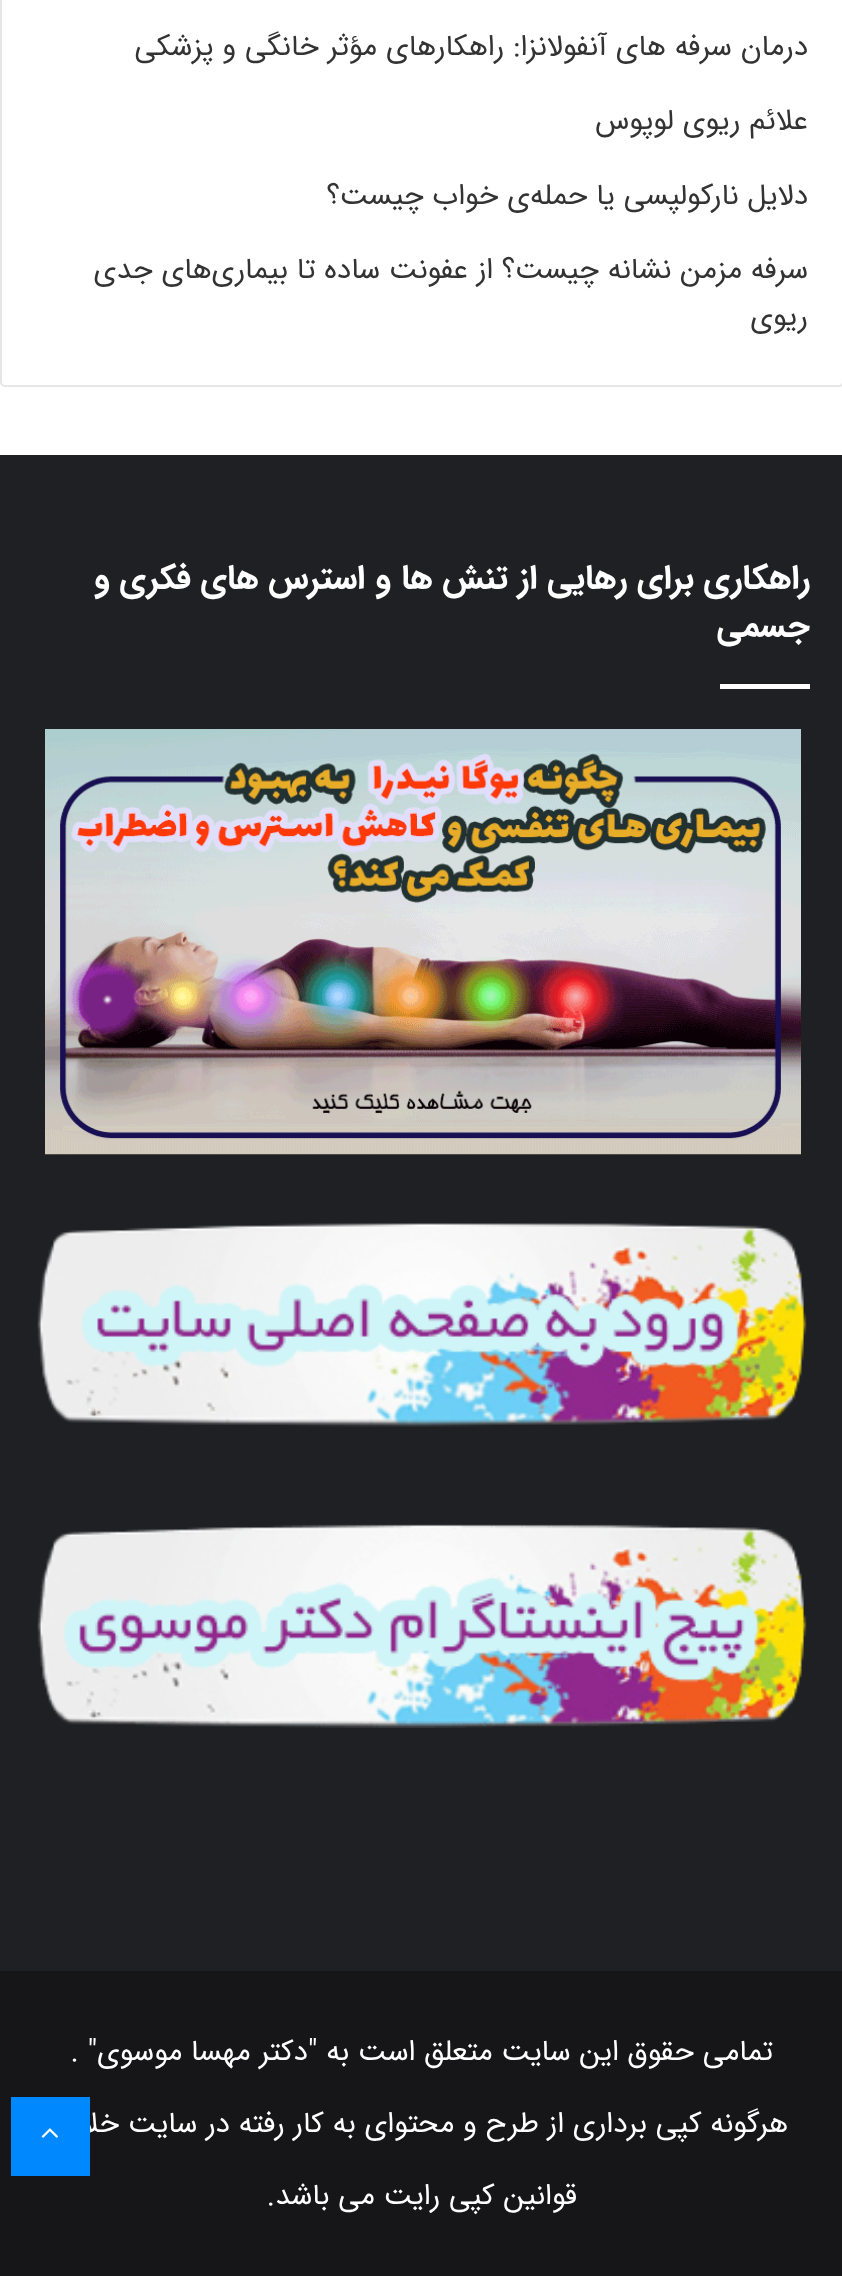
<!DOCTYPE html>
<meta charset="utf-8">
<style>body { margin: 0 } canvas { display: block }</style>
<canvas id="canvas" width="842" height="2276"></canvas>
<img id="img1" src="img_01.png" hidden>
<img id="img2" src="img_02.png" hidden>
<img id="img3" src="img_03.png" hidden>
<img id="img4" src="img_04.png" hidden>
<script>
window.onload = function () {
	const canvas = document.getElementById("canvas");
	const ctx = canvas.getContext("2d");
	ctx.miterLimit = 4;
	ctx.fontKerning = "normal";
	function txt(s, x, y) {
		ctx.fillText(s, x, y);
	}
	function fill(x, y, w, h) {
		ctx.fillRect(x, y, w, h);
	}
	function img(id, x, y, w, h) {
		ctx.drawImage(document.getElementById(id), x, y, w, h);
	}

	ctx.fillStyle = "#FFFFFF";
	fill(0, 0, 842, 2276);
	ctx.beginPath();
	ctx.roundRect(1, -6, 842, 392, 4);
	ctx.strokeStyle = "#E6E6E6";
	ctx.lineWidth = 2;
	ctx.stroke();
	ctx.fillStyle = "#1F2024";
	fill(0, 455, 842, 1516);
	ctx.fillStyle = "#FFFFFF";
	fill(720, 684, 90, 5);
	img("img1", 45, 729, 756, 426);
	img("img2", 37, 1223, 770, 204);
	img("img3", 37, 1524, 770, 204);
	ctx.fillStyle = "#161619";
	fill(0, 1971, 842, 305);
	ctx.direction = "rtl";
	ctx.font = "29.25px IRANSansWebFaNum";
	ctx.fillStyle = "#333333";
	txt("درمان سرفه های آنفولانزا: راهکارهای مؤثر خانگی و پزشکی", 808, 55);
	txt("علائم ریوی لوپوس", 808, 129);
	txt("دلایل نارکولپسی یا حمله‌ی خواب چیست؟", 808, 204);
	txt("سرفه مزمن نشانه چیست؟ از عفونت ساده تا بیماری‌های جدی", 808, 278);
	txt("ریوی", 808, 325);
	ctx.font = "bold 33.75px IRANSansWebFaNum";
	ctx.fillStyle = "#FFFFFF";
	txt("راهکاری برای رهایی از تنش ها و استرس های فکری و", 810, 588);
	txt("جسمی", 810, 636);
	ctx.font = "29.25px IRANSansWebFaNum";
	txt("تمامی حقوق این سایت متعلق است به \"دکتر مهسا موسوی\" .", 773, 2060);
	txt("هرگونه کپی برداری از طرح و محتوای به کار رفته در سایت خلاف", 788, 2132);
	txt("قوانین کپی رایت می باشد.", 577, 2204);
	ctx.fillStyle = "#0088FF";
	fill(11, 2097, 79, 79);
	img("img4", 41, 2128, 17, 10);
};
</script>
